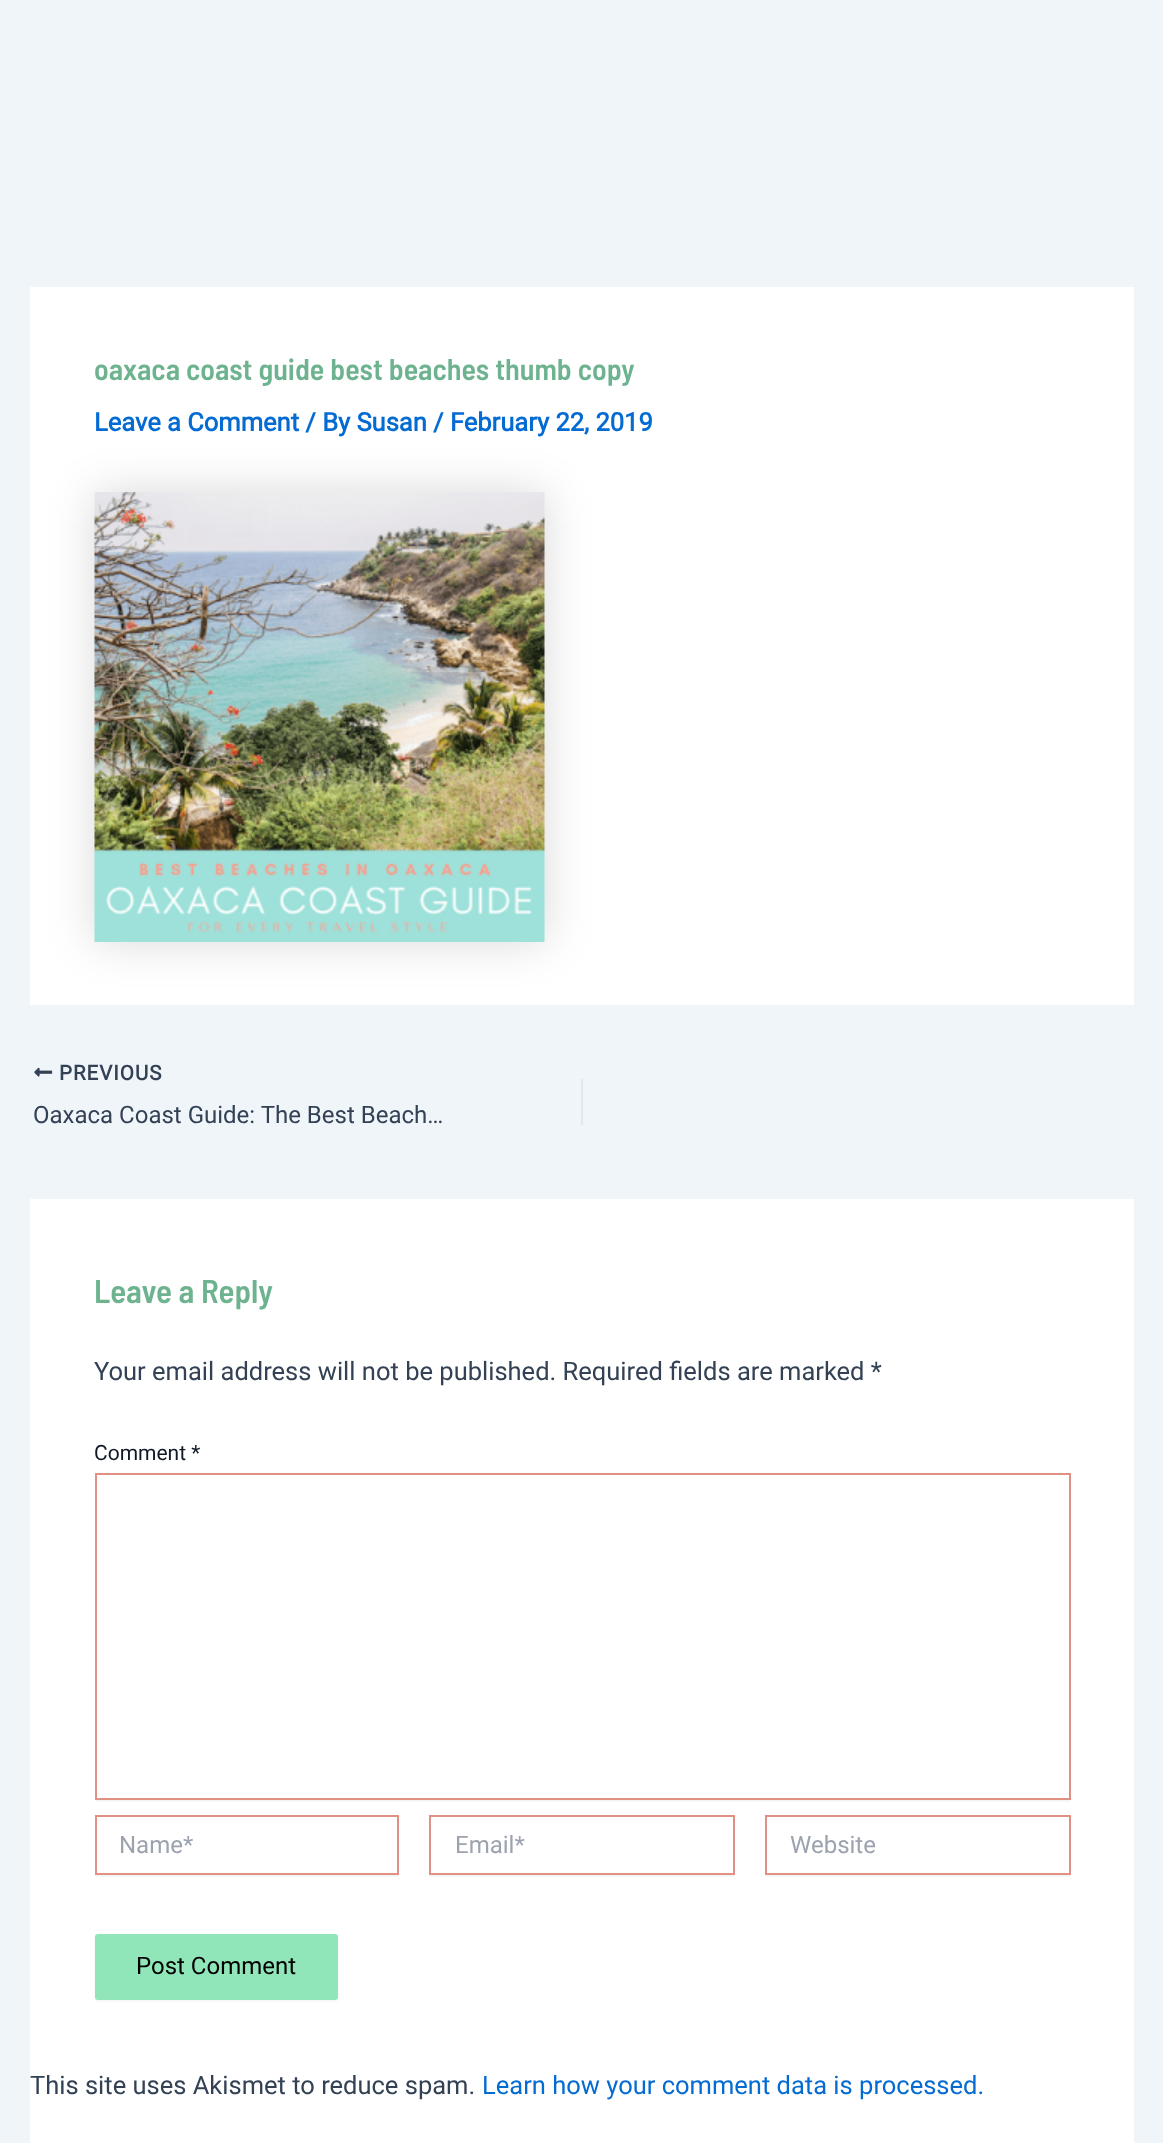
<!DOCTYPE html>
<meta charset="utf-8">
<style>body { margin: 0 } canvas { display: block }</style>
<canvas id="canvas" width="1163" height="2143"></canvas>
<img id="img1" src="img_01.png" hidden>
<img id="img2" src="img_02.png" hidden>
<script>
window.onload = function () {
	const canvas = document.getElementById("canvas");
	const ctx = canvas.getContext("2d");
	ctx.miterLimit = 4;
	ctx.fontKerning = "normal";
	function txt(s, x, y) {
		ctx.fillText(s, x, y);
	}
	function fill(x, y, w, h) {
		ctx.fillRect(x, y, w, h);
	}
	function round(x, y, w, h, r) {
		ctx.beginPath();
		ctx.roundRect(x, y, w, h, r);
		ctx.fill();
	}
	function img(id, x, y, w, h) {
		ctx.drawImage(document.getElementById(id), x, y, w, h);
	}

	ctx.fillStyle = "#F0F5FA";
	fill(0, 0, 1163, 2143);
	ctx.fillStyle = "#FFFFFF";
	fill(30, 287, 1104, 718);
	ctx.fillStyle = "rgba(0, 0, 0, 0.15)";
	ctx.filter = "blur(22.5px)";
	ctx.beginPath();
	ctx.rect(95, 492, 450, 450);
	ctx.fill();
	ctx.filter = "none";
	img("img1", 94, 492, 451, 450);
	img("img2", 34, 1067, 19, 10);
	ctx.fillStyle = "#E1E8ED";
	fill(581, 1079, 2, 46);
	ctx.fillStyle = "#FFFFFF";
	fill(30, 1199, 1104, 944);
	ctx.save();
	ctx.beginPath();
	ctx.rect(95, 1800, 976, 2);
	ctx.clip();
	ctx.fillStyle = "rgba(0, 0, 0, 0.05)";
	ctx.filter = "blur(1.5px)";
	ctx.beginPath();
	ctx.rect(95, 1475, 976, 327);
	ctx.fill();
	ctx.filter = "none";
	ctx.restore();
	ctx.strokeStyle = "#E19181";
	ctx.lineWidth = 2;
	ctx.strokeRect(96, 1474, 974, 325);
	ctx.save();
	ctx.beginPath();
	ctx.rect(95, 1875, 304, 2);
	ctx.clip();
	ctx.fillStyle = "rgba(0, 0, 0, 0.05)";
	ctx.filter = "blur(1.5px)";
	ctx.beginPath();
	ctx.rect(95, 1817, 304, 60);
	ctx.fill();
	ctx.filter = "none";
	ctx.restore();
	ctx.strokeRect(96, 1816, 302, 58);
	ctx.save();
	ctx.beginPath();
	ctx.rect(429, 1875, 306, 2);
	ctx.clip();
	ctx.fillStyle = "rgba(0, 0, 0, 0.05)";
	ctx.filter = "blur(1.5px)";
	ctx.beginPath();
	ctx.rect(429, 1817, 306, 60);
	ctx.fill();
	ctx.filter = "none";
	ctx.restore();
	ctx.strokeRect(430, 1816, 304, 58);
	ctx.save();
	ctx.beginPath();
	ctx.rect(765, 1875, 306, 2);
	ctx.clip();
	ctx.fillStyle = "rgba(0, 0, 0, 0.05)";
	ctx.filter = "blur(1.5px)";
	ctx.beginPath();
	ctx.rect(765, 1817, 306, 60);
	ctx.fill();
	ctx.filter = "none";
	ctx.restore();
	ctx.strokeRect(766, 1816, 304, 58);
	ctx.fillStyle = "rgba(0, 0, 0, 0.05)";
	ctx.filter = "blur(1.5px)";
	ctx.beginPath();
	ctx.roundRect(95, 1935, 243, 66, 3);
	ctx.fill();
	ctx.filter = "none";
	ctx.fillStyle = "#91E6B9";
	round(95, 1934, 243, 66, 3);
	ctx.font = "600 30px Barlow Semi Condensed";
	ctx.fillStyle = "#6EB38F";
	txt("oaxaca coast guide best beaches thumb copy", 94, 380);
	ctx.font = "bold 25.5px Roboto";
	ctx.fillStyle = "#046BD2";
	txt("Leave a Comment / By Susan / February 22, 2019", 94, 431);
	ctx.letterSpacing = "1px";
	ctx.font = "bold 20.5px Roboto";
	ctx.fillStyle = "#334155";
	txt("PREVIOUS", 59, 1080);
	ctx.letterSpacing = "0px";
	ctx.font = "24px Roboto";
	txt("Oaxaca Coast Guide: The Best Beach…", 33, 1123);
	ctx.font = "600 33px Barlow Semi Condensed";
	ctx.fillStyle = "#6EB38F";
	txt("Leave a Reply", 94, 1303);
	ctx.font = "25.5px Roboto";
	ctx.fillStyle = "#334155";
	txt("Your email address will not be published. Required fields are marked *", 94, 1380);
	ctx.font = "21px Roboto";
	ctx.fillStyle = "#111827";
	txt("Comment *", 94, 1460);
	ctx.font = "24px Roboto";
	ctx.fillStyle = "#9CA3AF";
	txt("Name*", 119, 1853);
	txt("Email*", 455, 1853);
	txt("Website", 790, 1853);
	ctx.fillStyle = "#000000";
	txt("Post Comment", 136, 1974);
	ctx.font = "25.5px Roboto";
	ctx.fillStyle = "#334155";
	txt("This site uses Akismet to reduce spam.", 30, 2094);
	ctx.fillStyle = "#046BD2";
	txt("Learn how your comment data is processed.", 482, 2094);
};
</script>
